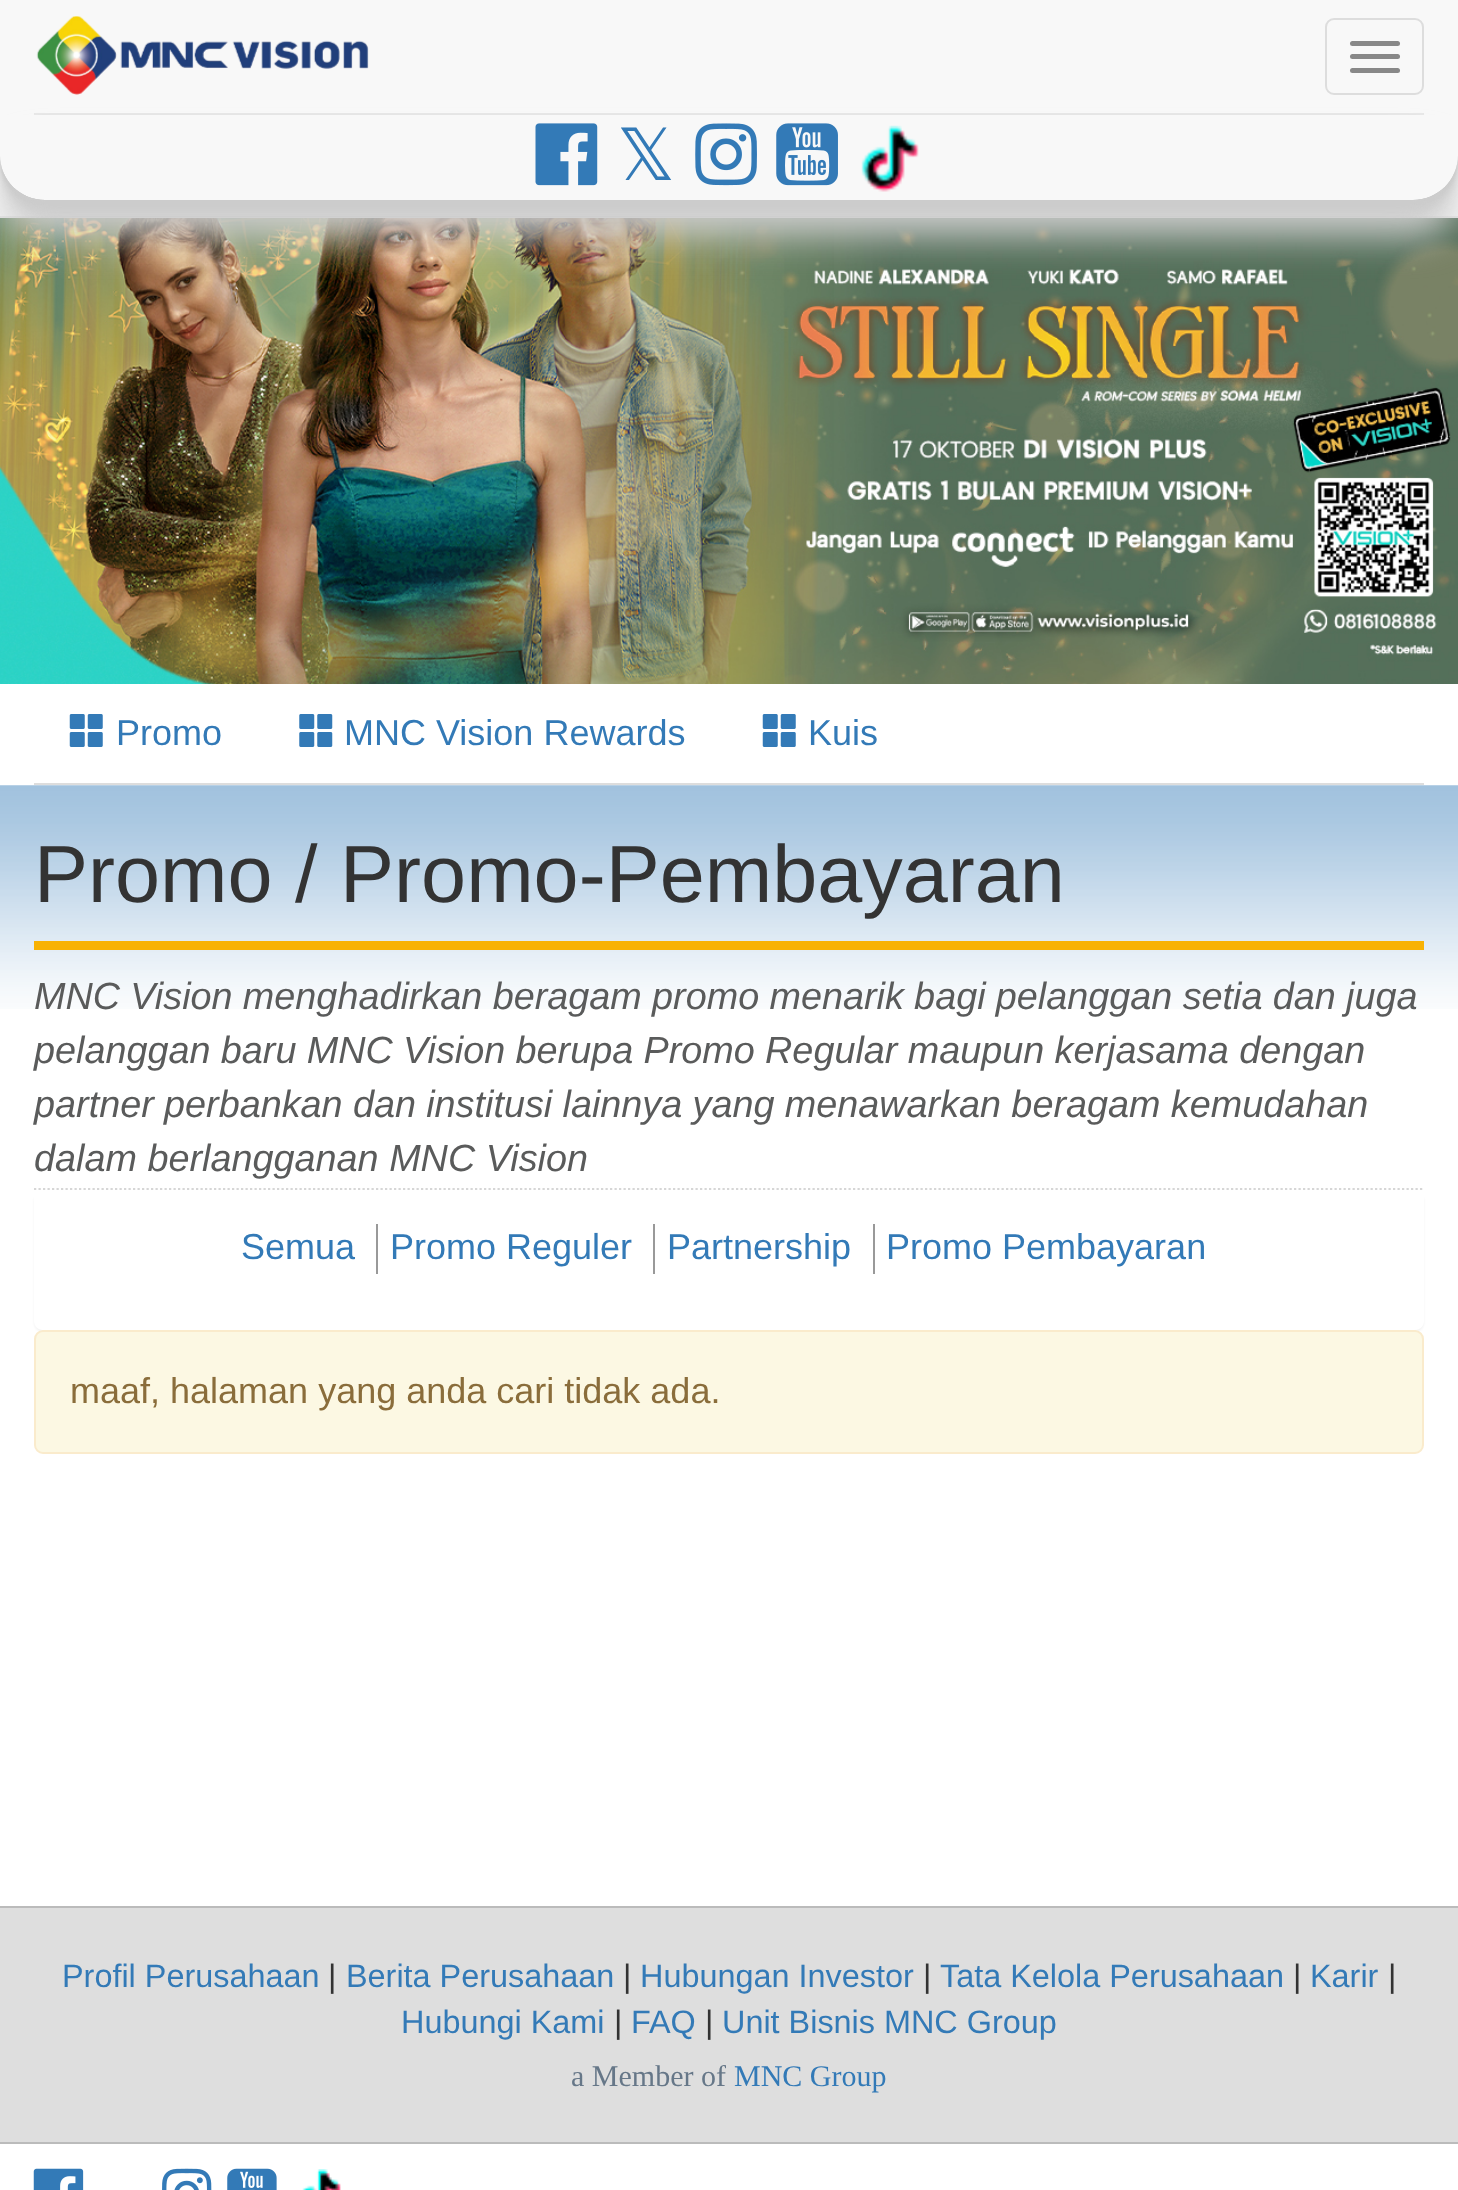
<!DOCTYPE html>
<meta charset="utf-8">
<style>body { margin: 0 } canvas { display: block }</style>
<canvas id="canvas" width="1458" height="2190"></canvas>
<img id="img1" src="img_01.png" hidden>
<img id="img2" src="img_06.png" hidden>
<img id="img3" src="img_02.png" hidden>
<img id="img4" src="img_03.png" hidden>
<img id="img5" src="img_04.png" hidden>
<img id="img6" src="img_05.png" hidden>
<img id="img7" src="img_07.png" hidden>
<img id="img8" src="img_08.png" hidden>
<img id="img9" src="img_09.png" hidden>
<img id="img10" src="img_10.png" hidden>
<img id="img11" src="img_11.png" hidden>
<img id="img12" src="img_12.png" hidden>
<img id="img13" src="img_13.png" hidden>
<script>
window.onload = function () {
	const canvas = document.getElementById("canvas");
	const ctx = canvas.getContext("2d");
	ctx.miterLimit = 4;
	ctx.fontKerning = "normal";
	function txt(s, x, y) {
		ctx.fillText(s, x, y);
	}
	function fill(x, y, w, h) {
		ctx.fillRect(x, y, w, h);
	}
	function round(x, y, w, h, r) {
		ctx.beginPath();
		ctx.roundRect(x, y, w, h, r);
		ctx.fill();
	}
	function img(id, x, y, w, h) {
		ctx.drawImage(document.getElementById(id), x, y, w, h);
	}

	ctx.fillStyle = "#FFFFFF";
	fill(0, 0, 1458, 2190);
	ctx.fillStyle = "#F8F8F8";
	fill(0, 0, 1458, 216);
	ctx.fillStyle = "#E7E7E7";
	fill(0, 216, 1458, 2);
	img("img1", 36, 16, 333, 79);
	ctx.beginPath();
	ctx.roundRect(1326, 19, 97, 75, 8);
	ctx.strokeStyle = "#DDDDDD";
	ctx.lineWidth = 2;
	ctx.stroke();
	ctx.fillStyle = "#888888";
	round(1350, 41, 50, 5, 2.5);
	round(1350, 54, 50, 5, 2.5);
	round(1350, 68, 50, 5, 2.5);
	ctx.fillStyle = "#E7E7E7";
	fill(34, 113, 1390, 2);
	img("img2", 0, 218, 1458, 466);
	ctx.save();
	ctx.beginPath();
	ctx.moveTo(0, 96);
	ctx.lineTo(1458, 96);
	ctx.lineTo(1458, 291);
	ctx.lineTo(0, 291);
	ctx.closePath();
	ctx.moveTo(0, 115);
	ctx.lineTo(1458, 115);
	ctx.lineTo(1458, 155);
	ctx.bezierCurveTo(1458, 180, 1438, 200, 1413, 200);
	ctx.lineTo(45, 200);
	ctx.bezierCurveTo(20, 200, 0, 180, 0, 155);
	ctx.closePath();
	ctx.clip("evenodd");
	ctx.fillStyle = "#CCCCCC";
	ctx.filter = "blur(18px)";
	ctx.beginPath();
	ctx.roundRect(0, 151, 1458, 85, 45);
	ctx.fill();
	ctx.filter = "none";
	ctx.restore();
	ctx.save();
	ctx.beginPath();
	ctx.moveTo(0, 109);
	ctx.lineTo(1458, 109);
	ctx.lineTo(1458, 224);
	ctx.lineTo(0, 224);
	ctx.closePath();
	ctx.moveTo(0, 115);
	ctx.lineTo(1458, 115);
	ctx.lineTo(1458, 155);
	ctx.bezierCurveTo(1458, 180, 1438, 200, 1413, 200);
	ctx.lineTo(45, 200);
	ctx.bezierCurveTo(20, 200, 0, 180, 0, 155);
	ctx.closePath();
	ctx.clip("evenodd");
	ctx.fillStyle = "#CCCCCC";
	ctx.filter = "blur(4.5px)";
	ctx.beginPath();
	ctx.roundRect(0, 124, 1458, 85, 45);
	ctx.fill();
	ctx.filter = "none";
	ctx.restore();
	ctx.save();
	ctx.beginPath();
	ctx.moveTo(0, 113);
	ctx.lineTo(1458, 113);
	ctx.lineTo(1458, 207);
	ctx.lineTo(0, 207);
	ctx.closePath();
	ctx.moveTo(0, 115);
	ctx.lineTo(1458, 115);
	ctx.lineTo(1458, 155);
	ctx.bezierCurveTo(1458, 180, 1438, 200, 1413, 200);
	ctx.lineTo(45, 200);
	ctx.bezierCurveTo(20, 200, 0, 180, 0, 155);
	ctx.closePath();
	ctx.clip("evenodd");
	ctx.fillStyle = "#CCCCCC";
	ctx.filter = "blur(1px)";
	ctx.beginPath();
	ctx.roundRect(0, 117, 1458, 86, 45);
	ctx.fill();
	ctx.filter = "none";
	ctx.restore();
	img("img3", 535, 123, 63, 63);
	img("img4", 695, 123, 62, 63);
	img("img5", 776, 123, 62, 63);
	img("img6", 861, 125, 58, 67);
	ctx.fillStyle = "#DDDDDD";
	fill(34, 783, 1390, 2);
	img("img7", 69, 714, 34, 33);
	img("img8", 299, 714, 34, 33);
	img("img7", 762, 714, 34, 33);
	img("img9", 0, 785, 1458, 224);
	ctx.fillStyle = "#F8B204";
	fill(34, 941, 1390, 9);
	ctx.save();
	ctx.beginPath();
	ctx.moveTo(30, 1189);
	ctx.lineTo(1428, 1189);
	ctx.lineTo(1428, 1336);
	ctx.lineTo(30, 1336);
	ctx.closePath();
	ctx.moveTo(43, 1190);
	ctx.lineTo(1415, 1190);
	ctx.bezierCurveTo(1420, 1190, 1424, 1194, 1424, 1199);
	ctx.lineTo(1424, 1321);
	ctx.bezierCurveTo(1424, 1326, 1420, 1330, 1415, 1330);
	ctx.lineTo(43, 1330);
	ctx.bezierCurveTo(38, 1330, 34, 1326, 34, 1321);
	ctx.lineTo(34, 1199);
	ctx.bezierCurveTo(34, 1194, 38, 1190, 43, 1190);
	ctx.closePath();
	ctx.clip("evenodd");
	ctx.fillStyle = "rgba(0, 0, 0, 0.05)";
	ctx.filter = "blur(1px)";
	ctx.beginPath();
	ctx.roundRect(34, 1193, 1390, 139, 9);
	ctx.fill();
	ctx.filter = "none";
	ctx.restore();
	ctx.beginPath();
	ctx.moveTo(34, 1189);
	ctx.lineTo(1424, 1189);
	ctx.strokeStyle = "#D6D6D6";
	ctx.lineWidth = 2.2;
	ctx.setLineDash([2.25, 2.25]);
	ctx.stroke();
	ctx.fillStyle = "#999999";
	fill(376, 1224, 2, 50);
	fill(653, 1224, 2, 50);
	fill(873, 1224, 2, 50);
	ctx.fillStyle = "#FCF8E3";
	ctx.beginPath();
	ctx.roundRect(35, 1331, 1388, 122, 8);
	ctx.fill();
	ctx.strokeStyle = "#FAEBCC";
	ctx.lineWidth = 2;
	ctx.setLineDash([]);
	ctx.stroke();
	ctx.fillStyle = "#DEDEDE";
	fill(0, 1908, 1458, 234);
	ctx.fillStyle = "#BBBBBB";
	fill(0, 1906, 1458, 2);
	fill(0, 2142, 1458, 2);
	img("img10", 33, 2168, 51, 22);
	img("img11", 162, 2168, 50, 22);
	img("img12", 227, 2168, 50, 22);
	img("img13", 302, 2169, 39, 21);
	ctx.font = "72px DejaVu Sans";
	ctx.fillStyle = "#337AB7";
	txt("𝕏", 617, 180);
	ctx.font = "36px Liberation Sans";
	txt("Promo", 116, 745);
	txt("MNC Vision Rewards", 344, 745);
	txt("Kuis", 808, 745);
	ctx.font = "81px Liberation Sans";
	ctx.fillStyle = "#333333";
	txt("Promo / Promo-Pembayaran", 34, 902);
	ctx.wordSpacing = "-0.25px";
	ctx.font = "italic 37.8px Liberation Sans";
	ctx.fillStyle = "#5A5B5B";
	txt("MNC Vision menghadirkan beragam promo menarik bagi pelanggan setia dan juga", 34, 1009);
	txt("pelanggan baru MNC Vision berupa Promo Regular maupun kerjasama dengan", 34, 1063);
	txt("partner perbankan dan institusi lainnya yang menawarkan beragam kemudahan", 34, 1117);
	ctx.wordSpacing = "0px";
	txt("dalam berlangganan MNC Vision", 34, 1171);
	ctx.font = "36px Liberation Sans";
	ctx.fillStyle = "#337AB7";
	txt("Semua", 241, 1259);
	txt("Promo Reguler", 390, 1259);
	txt("Partnership", 667, 1259);
	txt("Promo Pembayaran", 886, 1259);
	ctx.fillStyle = "#8A6D3B";
	txt("maaf, halaman yang anda cari tidak ada.", 70, 1403);
	ctx.font = "32.4px Liberation Sans";
	ctx.fillStyle = "#337AB7";
	txt("Profil Perusahaan", 62, 1987);
	ctx.fillStyle = "#333333";
	txt("|", 328, 1987);
	ctx.fillStyle = "#337AB7";
	txt("Berita Perusahaan", 346, 1987);
	ctx.fillStyle = "#333333";
	txt("|", 623, 1987);
	ctx.fillStyle = "#337AB7";
	txt("Hubungan Investor", 640, 1987);
	ctx.fillStyle = "#333333";
	txt("|", 923, 1987);
	ctx.fillStyle = "#337AB7";
	txt("Tata Kelola Perusahaan", 940, 1987);
	ctx.fillStyle = "#333333";
	txt("|", 1293, 1987);
	ctx.fillStyle = "#337AB7";
	txt("Karir", 1310, 1987);
	ctx.fillStyle = "#333333";
	txt("|", 1388, 1987);
	ctx.fillStyle = "#337AB7";
	txt("Hubungi Kami", 401, 2033);
	ctx.fillStyle = "#333333";
	txt("|", 614, 2033);
	ctx.fillStyle = "#337AB7";
	txt("FAQ", 631, 2033);
	ctx.fillStyle = "#333333";
	txt("|", 705, 2033);
	ctx.fillStyle = "#337AB7";
	txt("Unit Bisnis MNC Group", 722, 2033);
	ctx.font = "30px Liberation Serif";
	ctx.fillStyle = "#667788";
	txt("a Member of", 571, 2086);
	ctx.fillStyle = "#337AB7";
	txt("MNC Group", 734, 2086);
};
</script>
